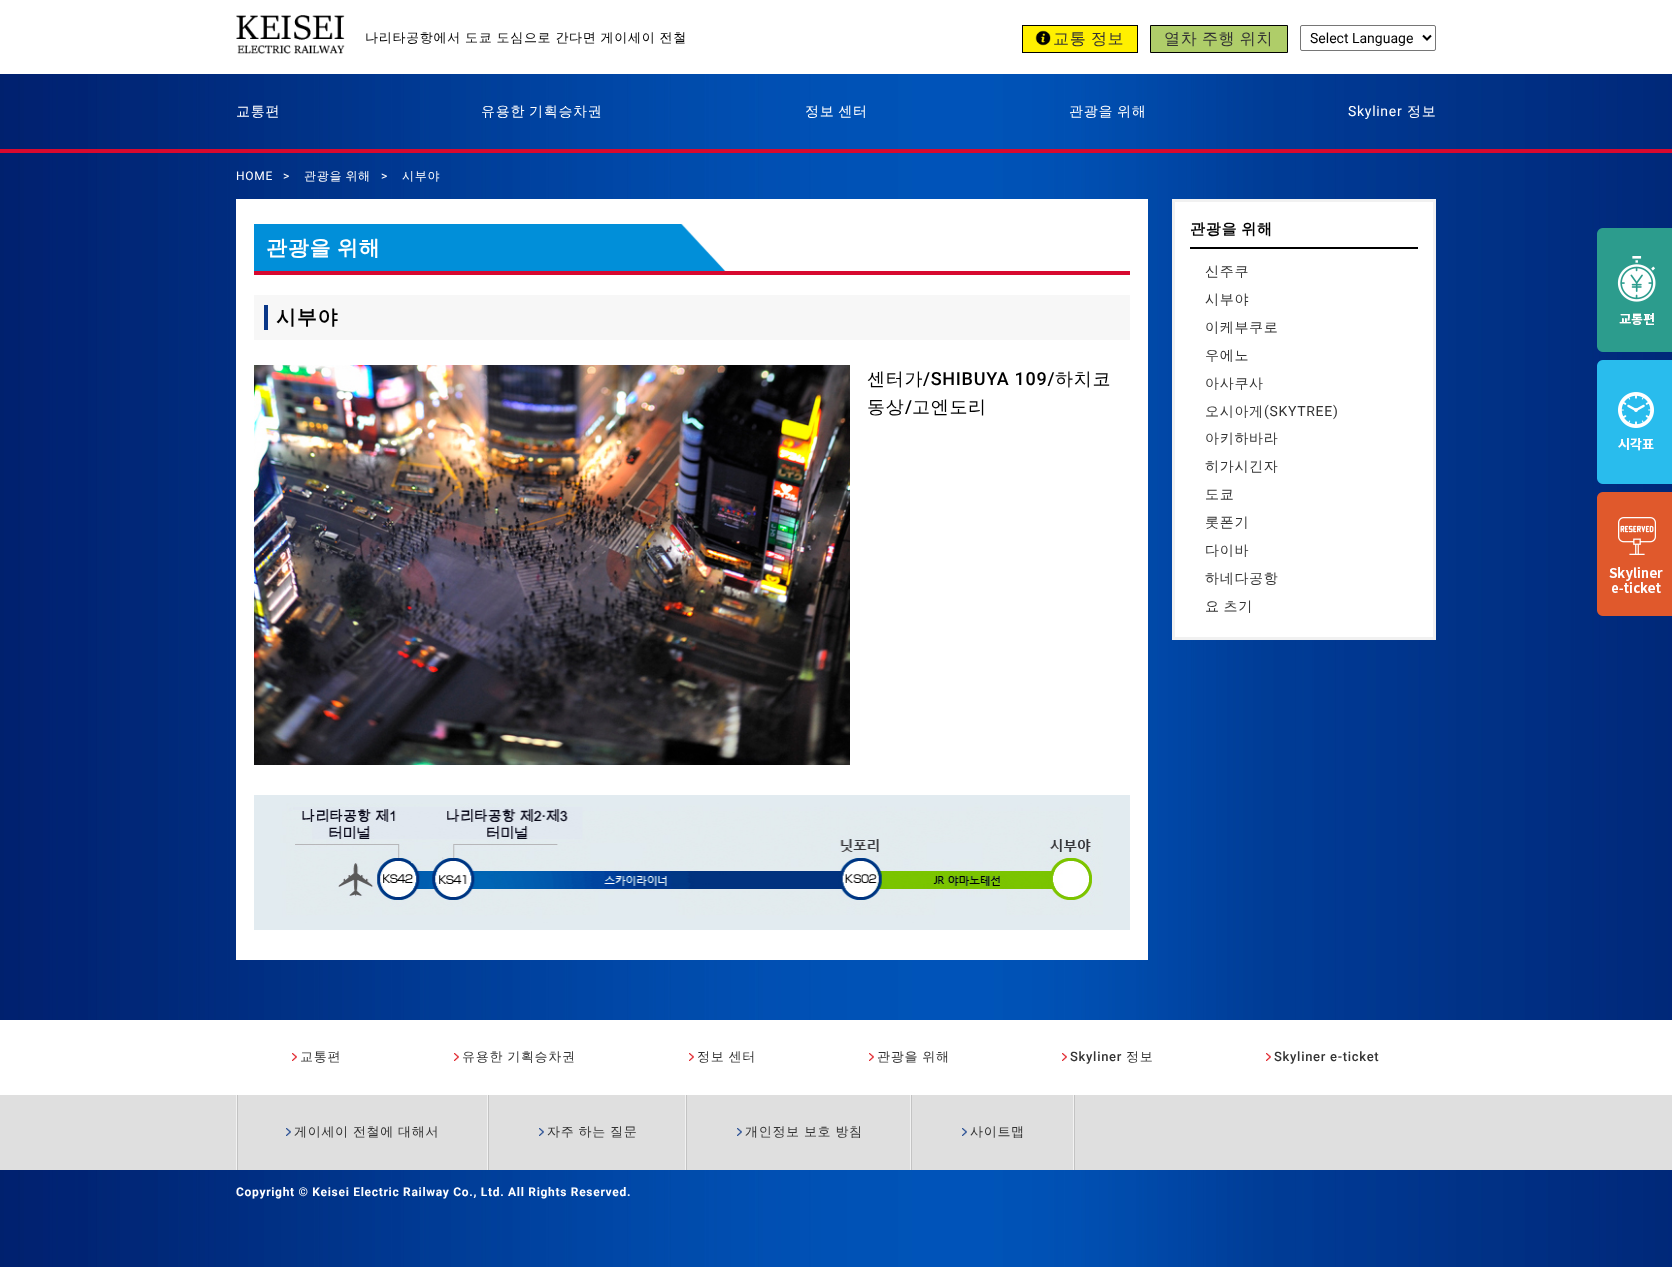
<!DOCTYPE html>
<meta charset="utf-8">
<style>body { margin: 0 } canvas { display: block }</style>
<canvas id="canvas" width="1672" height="1267"></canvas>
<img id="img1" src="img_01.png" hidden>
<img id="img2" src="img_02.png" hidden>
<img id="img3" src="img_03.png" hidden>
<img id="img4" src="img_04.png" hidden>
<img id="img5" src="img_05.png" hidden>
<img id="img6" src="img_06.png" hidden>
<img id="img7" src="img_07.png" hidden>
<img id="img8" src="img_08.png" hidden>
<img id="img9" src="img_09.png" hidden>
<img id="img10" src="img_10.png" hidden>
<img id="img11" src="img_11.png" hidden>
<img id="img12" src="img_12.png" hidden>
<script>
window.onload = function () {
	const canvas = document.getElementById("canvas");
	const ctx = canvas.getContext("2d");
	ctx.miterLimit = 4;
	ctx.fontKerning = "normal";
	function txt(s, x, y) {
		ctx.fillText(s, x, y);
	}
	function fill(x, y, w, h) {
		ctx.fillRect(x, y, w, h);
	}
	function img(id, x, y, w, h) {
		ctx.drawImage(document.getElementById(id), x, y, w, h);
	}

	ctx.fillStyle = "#FFFFFF";
	fill(0, 0, 1672, 1267);
	img("img1", 0, 74, 1672, 1193);
	img("img2", 236, 15, 109, 39);
	ctx.fillStyle = "#FFF000";
	fill(1023, 26, 114, 26);
	img("img3", 1035, 30, 16, 16);
	ctx.strokeStyle = "#000000";
	ctx.strokeRect(1022.5, 25.5, 115, 27);
	ctx.fillStyle = "#AFCD69";
	ctx.beginPath();
	ctx.rect(1150.5, 25.5, 137, 27);
	ctx.fill();
	ctx.stroke();
	ctx.beginPath();
	ctx.roundRect(1300.5, 25.5, 135, 25, 1.5);
	ctx.strokeStyle = "#767676";
	ctx.stroke();
	ctx.beginPath();
	ctx.moveTo(1423, 35.5);
	ctx.lineTo(1427, 39.5);
	ctx.lineTo(1431, 35.5);
	ctx.strokeStyle = "#000000";
	ctx.lineWidth = 2;
	ctx.stroke();
	ctx.fillStyle = "#D7092F";
	fill(0, 149, 1672, 4);
	ctx.fillStyle = "#FFFFFF";
	fill(236, 199, 912, 761);
	ctx.fillStyle = "#018FD9";
	fill(254, 224, 427, 47);
	img("img4", 681, 224, 449, 47);
	ctx.fillStyle = "#D7092F";
	fill(254, 271, 876, 4);
	ctx.fillStyle = "#F7F7F7";
	fill(254, 295, 876, 45);
	ctx.fillStyle = "#0A3788";
	fill(264, 305, 4, 25);
	img("img5", 254, 365, 596, 400);
	img("img6", 254, 795, 876, 135);
	ctx.strokeStyle = "#F1F1F1";
	ctx.lineWidth = 3;
	ctx.strokeRect(1173.5, 200.5, 261, 438);
	ctx.fillStyle = "#FFFFFF";
	fill(1175, 202, 258, 435);
	ctx.fillStyle = "#000000";
	fill(1190, 247, 228, 2);
	img("img7", 1597, 228, 75, 124);
	img("img8", 1597, 360, 75, 124);
	img("img9", 1597, 492, 75, 124);
	ctx.fillStyle = "#FFFFFF";
	fill(0, 1020, 1672, 75);
	img("img10", 292, 1053, 5, 8);
	img("img10", 454, 1053, 5, 8);
	img("img10", 689, 1053, 5, 8);
	img("img10", 869, 1053, 5, 8);
	img("img10", 1062, 1053, 5, 8);
	img("img10", 1266, 1053, 5, 8);
	ctx.fillStyle = "#DFDFDF";
	fill(0, 1095, 1672, 75);
	img("img11", 236, 1095, 2, 75);
	img("img11", 487, 1095, 2, 75);
	img("img12", 286, 1128, 5, 8);
	img("img11", 685, 1095, 2, 75);
	img("img12", 539, 1128, 5, 8);
	img("img11", 910, 1095, 2, 75);
	img("img12", 737, 1128, 5, 8);
	img("img11", 1073, 1095, 2, 75);
	img("img12", 962, 1128, 5, 8);
	ctx.letterSpacing = "0.7px";
	ctx.wordSpacing = "-0.5px";
	ctx.font = "500 13px WenQuanYi Zen Hei";
	ctx.fillStyle = "#000000";
	txt("나리타공항에서 도쿄 도심으로 간다면 게이세이 전철", 365, 42);
	ctx.wordSpacing = "-1px";
	ctx.font = "500 16px WenQuanYi Zen Hei";
	ctx.fillStyle = "#333333";
	txt("교통 정보", 1053, 44);
	txt("열차 주행 위치", 1164, 44);
	ctx.letterSpacing = "0px";
	ctx.wordSpacing = "0px";
	ctx.font = "14px Roboto";
	ctx.fillStyle = "#000000";
	txt("Select Language", 1310, 43);
	ctx.letterSpacing = "0.7px";
	ctx.font = "500 14px WenQuanYi Zen Hei";
	ctx.fillStyle = "#FFFFFF";
	txt("교통편", 236, 116);
	ctx.wordSpacing = "-1px";
	txt("유용한 기획승차권", 481, 116);
	txt("정보 센터", 805, 116);
	txt("관광을 위해", 1069, 116);
	ctx.wordSpacing = "0px";
	ctx.font = "14px Roboto";
	txt("Skyliner", 1348, 116);
	ctx.font = "500 14px WenQuanYi Zen Hei";
	txt("정보", 1407, 116);
	ctx.font = "12px Roboto";
	txt("HOME", 236, 180);
	txt(">", 283, 180);
	ctx.wordSpacing = "-1px";
	ctx.font = "500 12px WenQuanYi Zen Hei";
	txt("관광을 위해", 304, 180);
	ctx.wordSpacing = "0px";
	ctx.font = "12px Roboto";
	txt(">", 381, 180);
	ctx.font = "500 12px WenQuanYi Zen Hei";
	txt("시부야", 402, 180);
	ctx.wordSpacing = "-1px";
	ctx.font = "bold 21px WenQuanYi Zen Hei";
	txt("관광을 위해", 266, 255);
	ctx.wordSpacing = "0px";
	ctx.font = "bold 20px WenQuanYi Zen Hei";
	ctx.fillStyle = "#000000";
	txt("시부야", 276, 324);
	ctx.font = "500 18px WenQuanYi Zen Hei";
	txt("센터가", 867, 385);
	ctx.font = "500 18px Roboto";
	txt("/SHIBUYA 109/", 923, 385);
	ctx.font = "500 18px WenQuanYi Zen Hei";
	txt("하치코", 1055, 385);
	txt("동상", 867, 413);
	ctx.font = "500 18px Roboto";
	txt("/", 905, 413);
	ctx.font = "500 18px WenQuanYi Zen Hei";
	txt("고엔도리", 912, 413);
	ctx.wordSpacing = "-1px";
	ctx.font = "bold 15px WenQuanYi Zen Hei";
	txt("관광을 위해", 1190, 234);
	ctx.wordSpacing = "0px";
	ctx.font = "500 14px WenQuanYi Zen Hei";
	ctx.fillStyle = "#333333";
	txt("신주쿠", 1205, 276);
	txt("시부야", 1205, 304);
	txt("이케부쿠로", 1205, 332);
	txt("우에노", 1205, 360);
	txt("아사쿠사", 1205, 388);
	txt("오시아게", 1205, 416);
	ctx.font = "14px Roboto";
	txt("(SKYTREE)", 1264, 416);
	ctx.font = "500 14px WenQuanYi Zen Hei";
	txt("아키하바라", 1205, 443);
	txt("히가시긴자", 1205, 471);
	txt("도쿄", 1205, 499);
	txt("롯폰기", 1205, 527);
	txt("다이바", 1205, 555);
	txt("하네다공항", 1205, 583);
	ctx.wordSpacing = "-1px";
	txt("요 츠기", 1205, 611);
	ctx.wordSpacing = "0px";
	ctx.font = "500 13px WenQuanYi Zen Hei";
	txt("교통편", 300, 1061);
	ctx.wordSpacing = "-0.5px";
	txt("유용한 기획승차권", 462, 1061);
	txt("정보 센터", 697, 1061);
	txt("관광을 위해", 877, 1061);
	ctx.wordSpacing = "0px";
	ctx.font = "500 13px Roboto";
	txt("Skyliner", 1070, 1061);
	ctx.font = "500 13px WenQuanYi Zen Hei";
	txt("정보", 1126, 1061);
	ctx.font = "500 13px Roboto";
	txt("Skyliner e-ticket", 1274, 1061);
	ctx.wordSpacing = "-0.5px";
	ctx.font = "500 13px WenQuanYi Zen Hei";
	txt("게이세이 전철에 대해서", 294, 1136);
	txt("자주 하는 질문", 547, 1136);
	txt("개인정보 보호 방침", 745, 1136);
	ctx.wordSpacing = "0px";
	txt("사이트맵", 970, 1136);
	ctx.font = "bold 12px Roboto";
	ctx.fillStyle = "#FFFFFF";
	txt("Copyright © Keisei Electric Railway Co., Ltd. All Rights Reserved.", 236, 1196);
};
</script>
